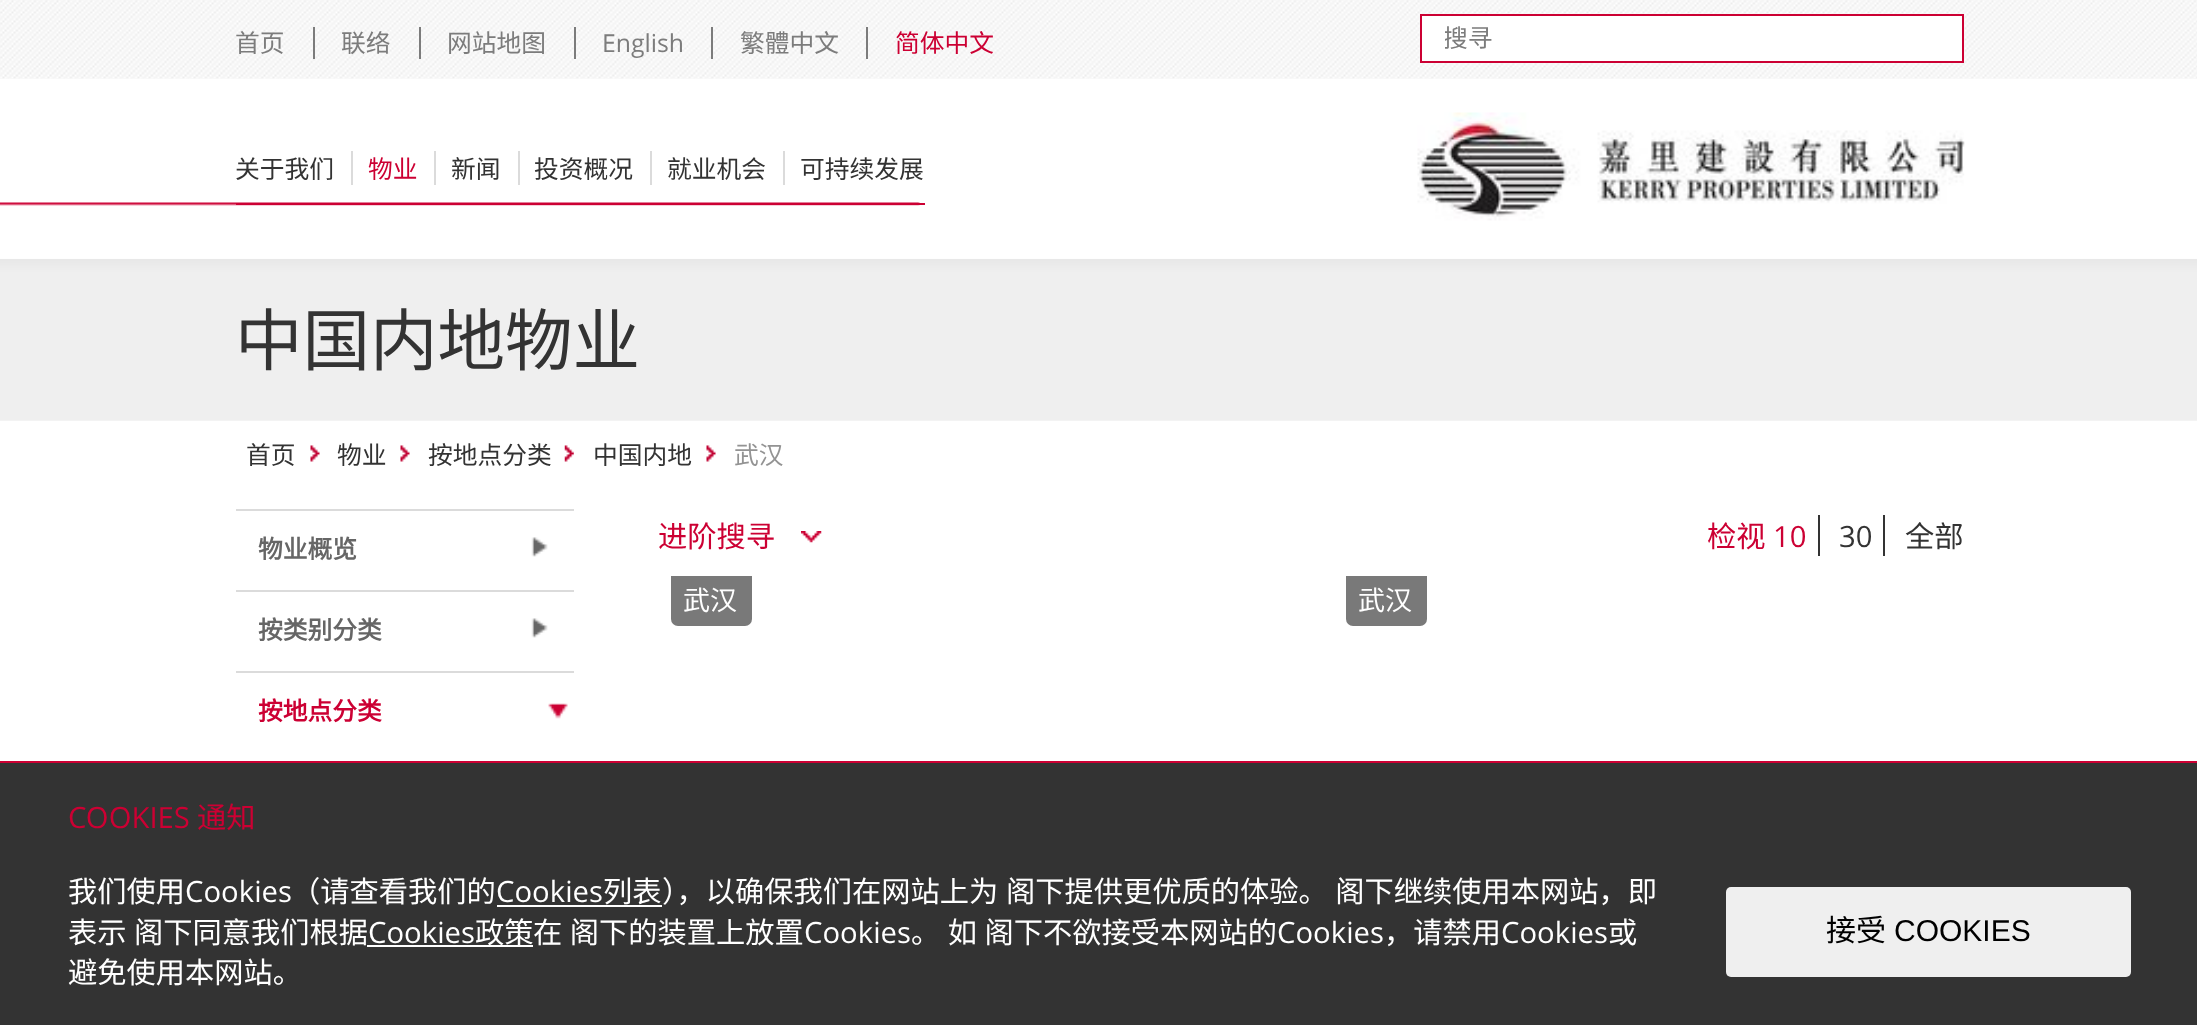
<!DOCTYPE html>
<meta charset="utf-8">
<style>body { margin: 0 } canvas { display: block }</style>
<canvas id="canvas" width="2197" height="1025"></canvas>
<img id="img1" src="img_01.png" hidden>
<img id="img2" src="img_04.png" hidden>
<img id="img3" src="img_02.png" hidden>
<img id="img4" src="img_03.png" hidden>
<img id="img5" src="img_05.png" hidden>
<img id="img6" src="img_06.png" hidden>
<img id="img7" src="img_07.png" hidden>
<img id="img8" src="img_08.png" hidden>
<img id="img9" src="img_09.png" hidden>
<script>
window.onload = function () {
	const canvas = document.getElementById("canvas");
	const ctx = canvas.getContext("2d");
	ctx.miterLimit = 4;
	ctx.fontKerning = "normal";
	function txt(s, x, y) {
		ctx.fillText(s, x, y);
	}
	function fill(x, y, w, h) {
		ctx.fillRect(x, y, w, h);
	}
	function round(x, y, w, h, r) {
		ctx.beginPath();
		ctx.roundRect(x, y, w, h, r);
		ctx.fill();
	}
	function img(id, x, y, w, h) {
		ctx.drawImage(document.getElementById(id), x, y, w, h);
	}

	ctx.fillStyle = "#FFFFFF";
	fill(0, 0, 2197, 1025);
	img("img1", 0, 0, 2197, 79);
	ctx.fillStyle = "#7C7C7C";
	fill(313, 27, 2, 32);
	fill(419, 27, 2, 32);
	fill(574, 27, 2, 32);
	fill(711, 27, 2, 32);
	fill(866, 27, 2, 32);
	ctx.fillStyle = "#FFFFFF";
	ctx.beginPath();
	ctx.rect(1421, 15, 542, 47);
	ctx.fill();
	ctx.strokeStyle = "#CC0033";
	ctx.lineWidth = 2;
	ctx.stroke();
	img("img2", 0, 258, 2197, 163);
	img("img3", 0, 202, 2197, 57);
	ctx.fillStyle = "#CC0033";
	fill(236, 203, 689, 2);
	ctx.fillStyle = "#DBDBDB";
	fill(351, 151, 2, 34);
	fill(434, 151, 2, 34);
	fill(518, 151, 2, 34);
	fill(650, 151, 2, 34);
	fill(783, 151, 2, 34);
	img("img4", 1417, 112, 548, 109);
	img("img5", 310, 445, 10, 17);
	img("img5", 400, 445, 10, 17);
	img("img6", 564, 445, 10, 17);
	img("img5", 706, 445, 10, 17);
	fill(236, 509, 338, 2);
	img("img7", 531, 537, 17, 20);
	fill(236, 590, 338, 2);
	img("img7", 531, 618, 17, 20);
	fill(236, 671, 338, 2);
	img("img8", 548, 703, 20, 16);
	img("img9", 801, 531, 21, 12);
	ctx.fillStyle = "#333333";
	fill(1818, 515, 2, 41);
	fill(1883, 515, 2, 41);
	ctx.fillStyle = "#797979";
	ctx.beginPath();
	ctx.roundRect(671, 576, 81, 50, [0, 0, 7, 7]);
	ctx.fill();
	ctx.beginPath();
	ctx.roundRect(1346, 576, 81, 50, [0, 0, 7, 7]);
	ctx.fill();
	ctx.fillStyle = "#333333";
	fill(0, 763, 2197, 262);
	ctx.fillStyle = "#CC0033";
	fill(0, 761, 2197, 2);
	ctx.fillStyle = "#FFFFFF";
	fill(497, 905, 165, 2);
	fill(367, 945, 166, 2);
	ctx.fillStyle = "#EFEFEF";
	round(1726, 887, 405, 90, 5);
	ctx.font = "24.75px Noto Sans CJK SC";
	ctx.fillStyle = "#7C7C7C";
	txt("首页", 235, 52);
	txt("联络", 341, 52);
	txt("网站地图", 447, 52);
	ctx.font = "24.75px Open Sans";
	txt("English", 602, 52);
	ctx.font = "24.75px Noto Sans CJK SC";
	txt("繁體中文", 740, 52);
	ctx.fillStyle = "#CC0033";
	txt("简体中文", 895, 52);
	ctx.save();
	ctx.beginPath();
	ctx.rect(1445, 16, 405, 45);
	ctx.clip();
	ctx.fillStyle = "#7C7C7C";
	txt("搜寻", 1443, 47);
	ctx.restore();
	ctx.fillStyle = "#333333";
	txt("关于我们", 235, 178);
	ctx.fillStyle = "#CC0033";
	txt("物业", 368, 178);
	ctx.fillStyle = "#333333";
	txt("新闻", 451, 178);
	txt("投资概况", 534, 178);
	txt("就业机会", 667, 178);
	txt("可持续发展", 800, 178);
	ctx.font = "67.5px Noto Sans CJK SC";
	txt("中国内地物业", 235, 365);
	ctx.font = "24.75px Noto Sans CJK SC";
	txt("首页", 246, 464);
	txt("物业", 337, 464);
	txt("按地点分类", 428, 464);
	txt("中国内地", 593, 464);
	ctx.fillStyle = "#939393";
	txt("武汉", 734, 464);
	ctx.font = "bold 24.75px Noto Sans CJK SC";
	ctx.fillStyle = "#666666";
	txt("物业概览", 258, 558);
	txt("按类别分类", 258, 639);
	ctx.fillStyle = "#CC0033";
	txt("按地点分类", 258, 720);
	ctx.font = "29.25px Noto Sans CJK SC";
	txt("进阶搜寻", 658, 547);
	txt("检视", 1707, 547);
	ctx.font = "29.25px Open Sans";
	txt("10", 1773, 547);
	ctx.fillStyle = "#333333";
	txt("30", 1839, 547);
	ctx.font = "29.25px Noto Sans CJK SC";
	txt("全部", 1905, 547);
	ctx.font = "27px Noto Sans CJK SC";
	ctx.fillStyle = "#FFFFFF";
	txt("武汉", 683, 610);
	txt("武汉", 1358, 610);
	ctx.font = "29.25px Open Sans";
	ctx.fillStyle = "#CC0033";
	txt("COOKIES", 68, 828);
	ctx.font = "29.25px Noto Sans CJK SC";
	txt("通知", 197, 828);
	ctx.fillStyle = "#FFFFFF";
	txt("我们使用", 68, 902);
	ctx.font = "29.25px Open Sans";
	txt("Cookies", 185, 902);
	ctx.font = "29.25px Noto Sans CJK SC";
	txt("（请查看我们的", 291, 902);
	ctx.font = "29.25px Open Sans";
	txt("Cookies", 496, 902);
	ctx.font = "29.25px Noto Sans CJK SC";
	txt("列表", 603, 902);
	ctx.wordSpacing = "1px";
	txt("），以确保我们在网站上为 阁下提供更优质的体验。 阁下继续使用本网站，即", 662, 902);
	txt("表示 阁下同意我们根据", 68, 943);
	ctx.wordSpacing = "0px";
	ctx.font = "29.25px Open Sans";
	txt("Cookies", 368, 943);
	ctx.font = "29.25px Noto Sans CJK SC";
	txt("政策", 475, 943);
	ctx.wordSpacing = "1px";
	txt("在 阁下的装置上放置", 533, 943);
	ctx.wordSpacing = "0px";
	ctx.font = "29.25px Open Sans";
	txt("Cookies", 804, 943);
	ctx.wordSpacing = "1px";
	ctx.font = "29.25px Noto Sans CJK SC";
	txt("。 如 阁下不欲接受本网站的", 911, 943);
	ctx.wordSpacing = "0px";
	ctx.font = "29.25px Open Sans";
	txt("Cookies", 1277, 943);
	ctx.font = "29.25px Noto Sans CJK SC";
	txt("，请禁用", 1384, 943);
	ctx.font = "29.25px Open Sans";
	txt("Cookies", 1501, 943);
	ctx.font = "29.25px Noto Sans CJK SC";
	txt("或", 1608, 943);
	txt("避免使用本网站。", 68, 983);
	ctx.font = "30px Noto Sans CJK SC";
	ctx.fillStyle = "#000000";
	txt("接受", 1826, 941);
	ctx.font = "30px Liberation Sans";
	txt("COOKIES", 1894, 941);
};
</script>
